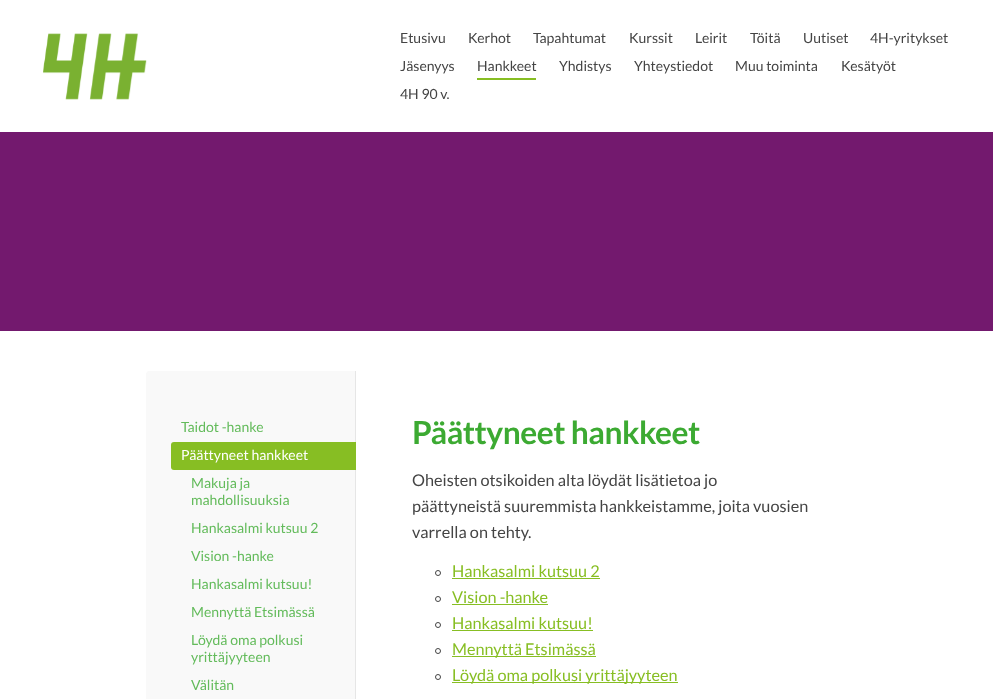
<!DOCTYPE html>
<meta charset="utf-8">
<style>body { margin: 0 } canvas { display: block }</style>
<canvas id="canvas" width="993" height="699"></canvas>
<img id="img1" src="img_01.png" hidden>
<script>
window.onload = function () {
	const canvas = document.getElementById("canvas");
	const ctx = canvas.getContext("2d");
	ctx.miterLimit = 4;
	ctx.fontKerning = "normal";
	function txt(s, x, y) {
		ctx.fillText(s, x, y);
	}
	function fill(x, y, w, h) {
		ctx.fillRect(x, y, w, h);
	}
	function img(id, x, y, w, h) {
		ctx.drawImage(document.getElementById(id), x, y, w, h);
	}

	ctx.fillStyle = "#FFFFFF";
	fill(0, 0, 993, 699);
	ctx.fillStyle = "#73196E";
	fill(0, 132, 993, 199);
	img("img1", 43, 33, 104, 67);
	ctx.fillStyle = "#87BE23";
	fill(477, 78, 59, 2);
	ctx.fillStyle = "#F9F9F9";
	ctx.beginPath();
	ctx.moveTo(149, 371);
	ctx.lineTo(356, 371);
	ctx.lineTo(356, 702);
	ctx.lineTo(146, 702);
	ctx.lineTo(146, 374);
	ctx.bezierCurveTo(146, 372.5, 147.5, 371, 149, 371);
	ctx.closePath();
	ctx.fill();
	ctx.fillStyle = "#E6E6E6";
	fill(355, 371, 1, 328);
	ctx.fillStyle = "#87BE23";
	ctx.beginPath();
	ctx.roundRect(171, 442, 185, 28, [3, 0, 0, 3]);
	ctx.fill();
	ctx.beginPath();
	ctx.arc(438, 573, 2.5, 0, Math.PI * 2);
	ctx.strokeStyle = "#444444";
	ctx.stroke();
	fill(452, 578, 148, 1);
	ctx.beginPath();
	ctx.arc(438, 599, 2.5, 0, Math.PI * 2);
	ctx.stroke();
	fill(452, 604, 96, 1);
	ctx.beginPath();
	ctx.arc(438, 625, 2.5, 0, Math.PI * 2);
	ctx.stroke();
	fill(452, 630, 141, 1);
	ctx.beginPath();
	ctx.arc(438, 651, 2.5, 0, Math.PI * 2);
	ctx.stroke();
	fill(452, 656, 144, 1);
	ctx.beginPath();
	ctx.arc(438, 677, 2.5, 0, Math.PI * 2);
	ctx.stroke();
	fill(452, 682, 226, 1);
	ctx.font = "14px Lato";
	ctx.fillStyle = "#444444";
	txt("Etusivu", 400, 43);
	txt("Kerhot", 468, 43);
	txt("Tapahtumat", 533, 43);
	txt("Kurssit", 629, 43);
	txt("Leirit", 695, 43);
	txt("Töitä", 750, 43);
	txt("Uutiset", 803, 43);
	txt("4H-yritykset", 870, 43);
	txt("Jäsenyys", 400, 71);
	txt("Hankkeet", 477, 71);
	txt("Yhdistys", 559, 71);
	txt("Yhteystiedot", 634, 71);
	txt("Muu toiminta", 735, 71);
	txt("Kesätyöt", 841, 71);
	txt("4H 90 v.", 400, 99);
	ctx.fillStyle = "#63BB5B";
	txt("Taidot -hanke", 181, 432);
	ctx.fillStyle = "#FFFFFF";
	txt("Päättyneet hankkeet", 181, 460);
	ctx.fillStyle = "#63BB5B";
	txt("Makuja ja", 191, 488);
	txt("mahdollisuuksia", 191, 505);
	txt("Hankasalmi kutsuu 2", 191, 533);
	txt("Vision -hanke", 191, 561);
	txt("Hankasalmi kutsuu!", 191, 589);
	txt("Mennyttä Etsimässä", 191, 617);
	txt("Löydä oma polkusi", 191, 645);
	txt("yrittäjyyteen", 191, 662);
	txt("Välitän", 191, 690);
	ctx.letterSpacing = "-0.5px";
	ctx.font = "bold 31.75px Lato";
	ctx.fillStyle = "#3CAA32";
	txt("Päättyneet hankkeet", 412, 444);
	ctx.letterSpacing = "0px";
	ctx.font = "16.25px Lato";
	ctx.fillStyle = "#444444";
	txt("Oheisten otsikoiden alta löydät lisätietoa jo", 412, 486);
	txt("päättyneistä suuremmista hankkeistamme, joita vuosien", 412, 512);
	txt("varrella on tehty.", 412, 538);
	ctx.fillStyle = "#87BE23";
	txt("Hankasalmi kutsuu 2", 452, 577);
	txt("Vision -hanke", 452, 603);
	txt("Hankasalmi kutsuu!", 452, 629);
	txt("Mennyttä Etsimässä", 452, 655);
	txt("Löydä oma polkusi yrittäjyyteen", 452, 681);
};
</script>
